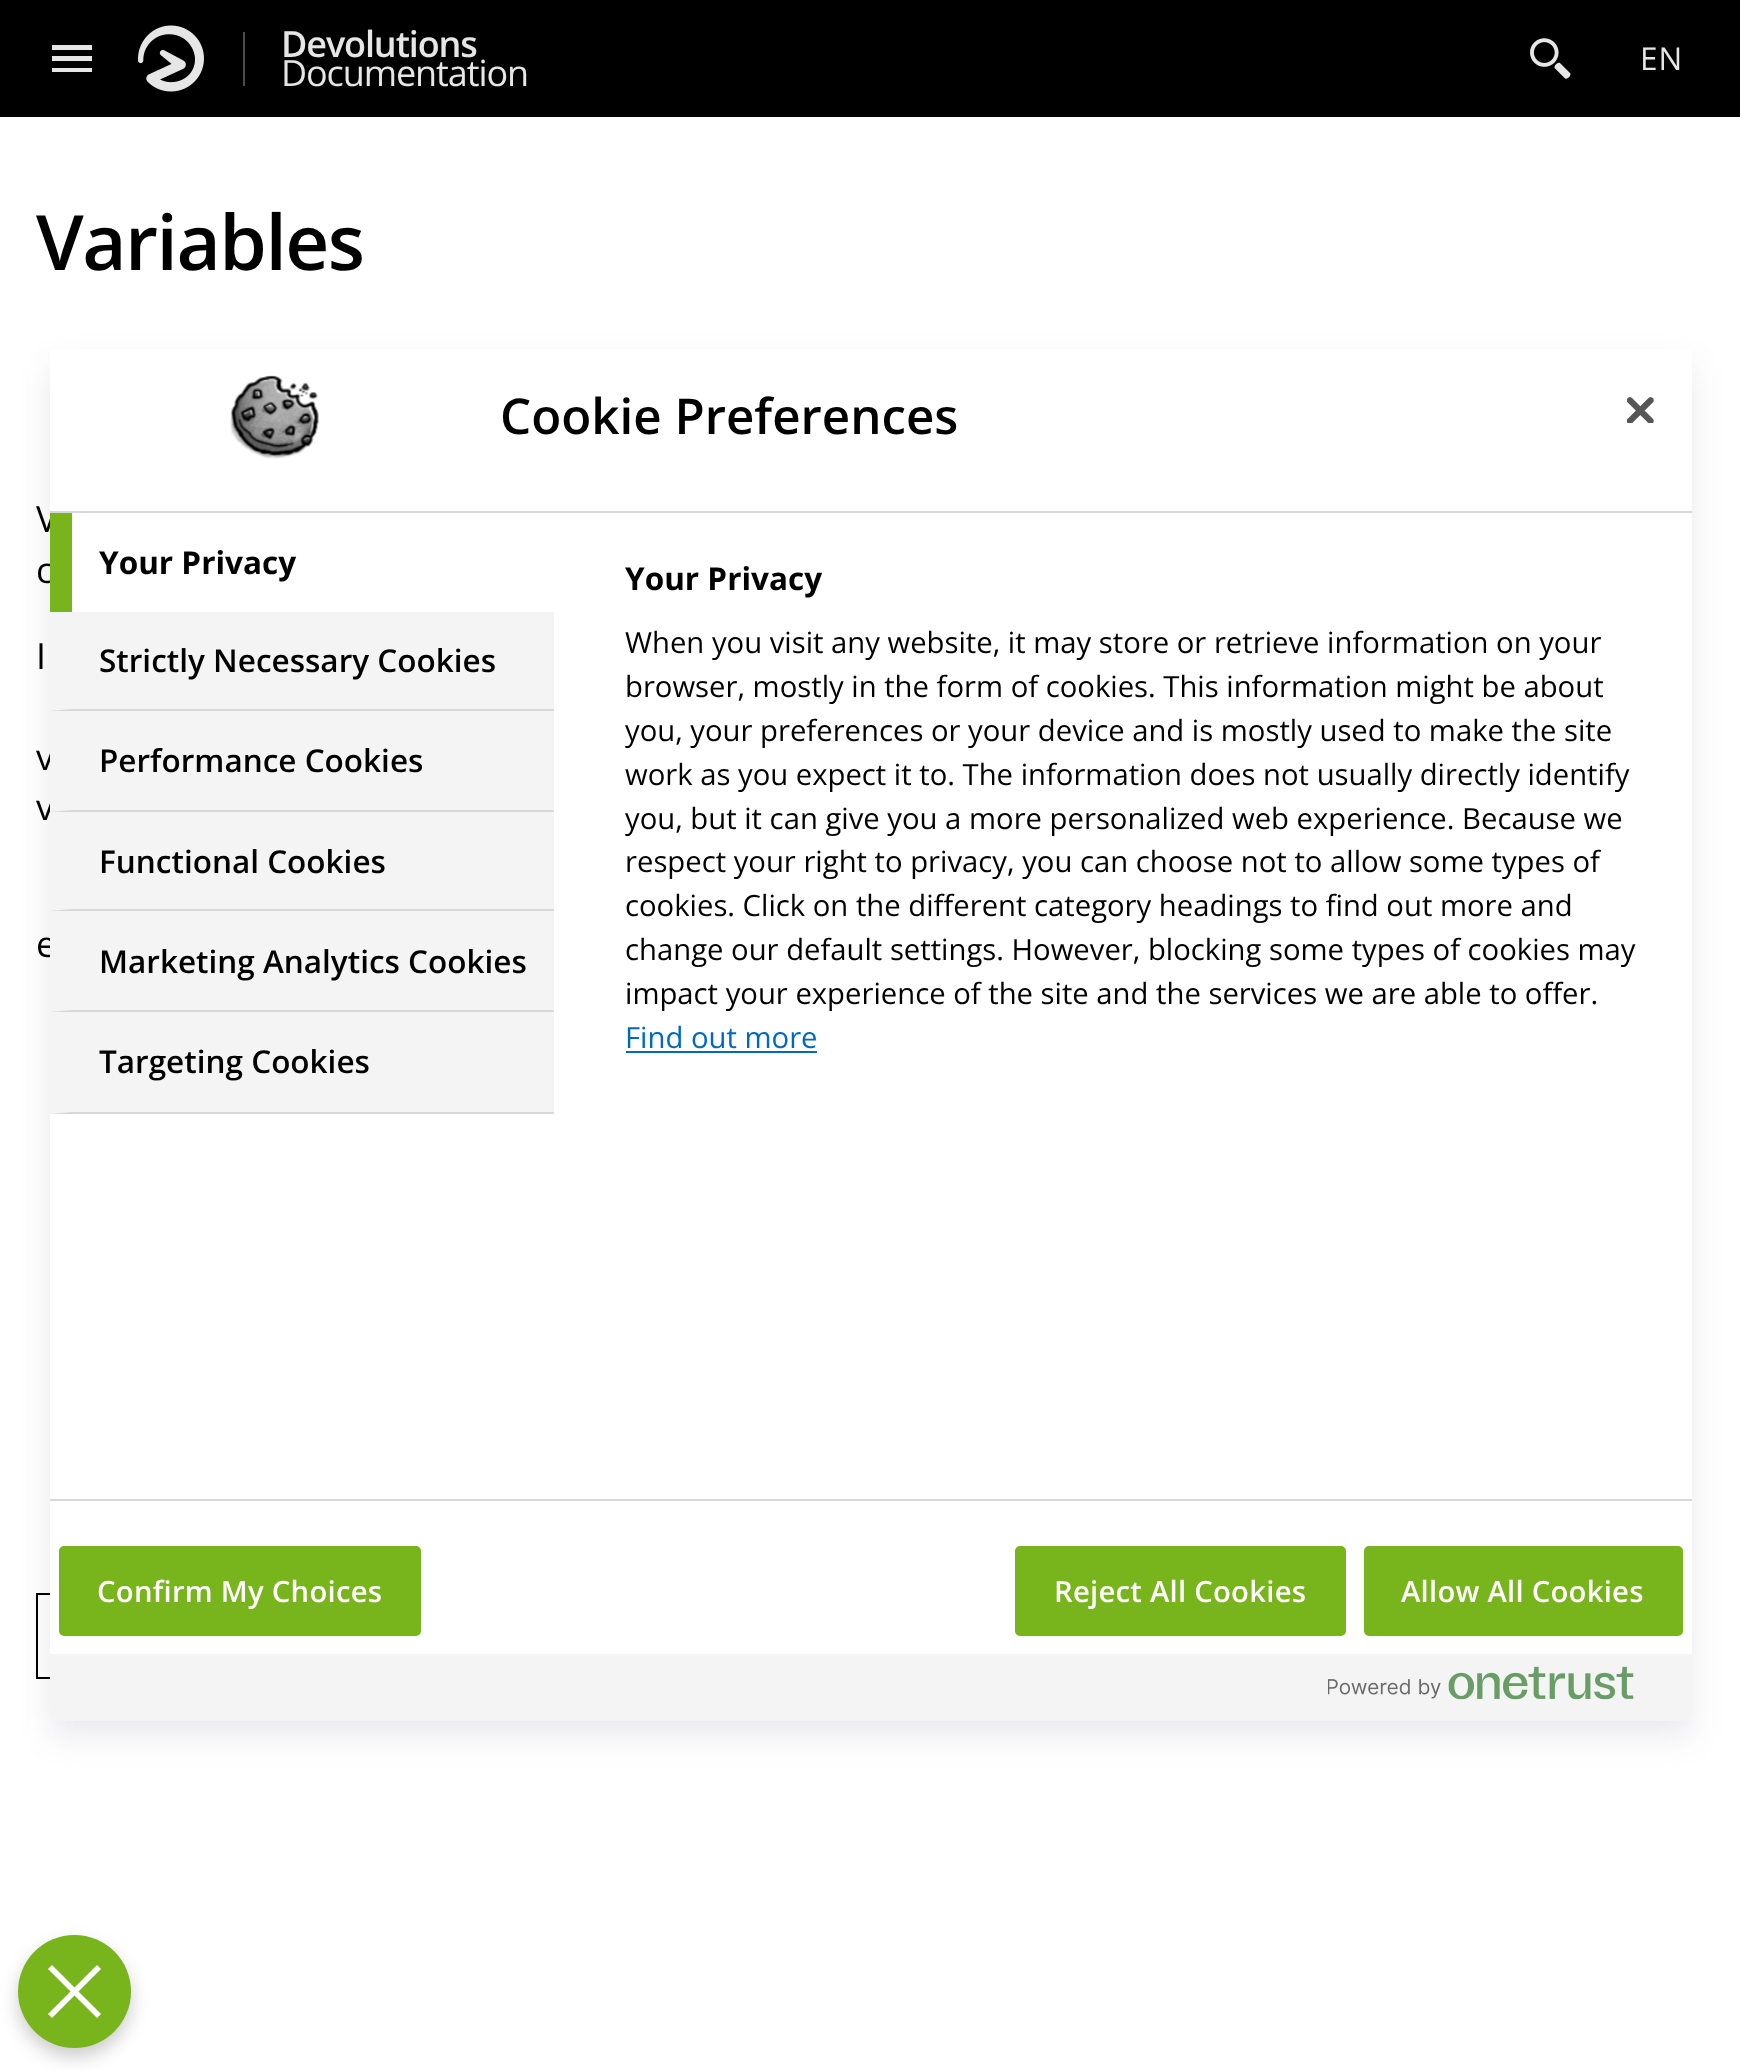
<!DOCTYPE html>
<meta charset="utf-8">
<style>body { margin: 0 } canvas { display: block }</style>
<canvas id="canvas" width="1740" height="2070"></canvas>
<img id="img1" src="img_01.png" hidden>
<img id="img2" src="img_02.png" hidden>
<img id="img3" src="img_03.png" hidden>
<img id="img4" src="img_04.png" hidden>
<img id="img5" src="img_05.png" hidden>
<script>
window.onload = function () {
	const canvas = document.getElementById("canvas");
	const ctx = canvas.getContext("2d");
	ctx.miterLimit = 4;
	ctx.fontKerning = "normal";
	function txt(s, x, y) {
		ctx.fillText(s, x, y);
	}
	function fill(x, y, w, h) {
		ctx.fillRect(x, y, w, h);
	}
	function round(x, y, w, h, r) {
		ctx.beginPath();
		ctx.roundRect(x, y, w, h, r);
		ctx.fill();
	}
	function img(id, x, y, w, h) {
		ctx.drawImage(document.getElementById(id), x, y, w, h);
	}

	ctx.fillStyle = "#FFFFFF";
	fill(0, 0, 1740, 2070);
	ctx.fillStyle = "#000000";
	fill(0, 0, 1740, 117);
	ctx.fillStyle = "#E6E6E6";
	ctx.beginPath();
	ctx.moveTo(52, 72);
	ctx.lineTo(92, 72);
	ctx.lineTo(92, 68);
	ctx.lineTo(52, 68);
	ctx.closePath();
	ctx.moveTo(52, 61);
	ctx.lineTo(92, 61);
	ctx.lineTo(92, 56);
	ctx.lineTo(52, 56);
	ctx.closePath();
	ctx.moveTo(52, 45);
	ctx.lineTo(52, 50);
	ctx.lineTo(92, 50);
	ctx.lineTo(92, 45);
	ctx.closePath();
	ctx.fill();
	img("img1", 138, 25, 66, 67);
	ctx.fillStyle = "#4D4D4D";
	fill(243, 32, 2, 54);
	img("img2", 1530, 38, 41, 41);
	ctx.strokeStyle = "#000000";
	ctx.lineWidth = 2;
	ctx.strokeRect(37, 1594, 495, 84);
	ctx.fillStyle = "rgba(50, 50, 93, 0.1)";
	ctx.filter = "blur(16px)";
	ctx.beginPath();
	ctx.roundRect(50, 365, 1642, 1372, 5);
	ctx.fill();
	ctx.filter = "none";
	ctx.fillStyle = "rgba(0, 0, 0, 0.2)";
	ctx.filter = "blur(9px)";
	ctx.beginPath();
	ctx.roundRect(18, 1944, 113, 113, 56.5);
	ctx.fill();
	ctx.filter = "none";
	ctx.fillStyle = "#78B41B";
	ctx.beginPath();
	ctx.arc(74.5, 1991.5, 56.5, 0, Math.PI * 2);
	ctx.fill();
	ctx.fillStyle = "#FFFFFF";
	ctx.beginPath();
	ctx.moveTo(48, 1969);
	ctx.lineTo(97, 2018);
	ctx.lineTo(101, 2014);
	ctx.lineTo(52, 1965);
	ctx.closePath();
	ctx.fill();
	ctx.beginPath();
	ctx.moveTo(101, 1969);
	ctx.lineTo(52, 2018);
	ctx.lineTo(48, 2014);
	ctx.lineTo(97, 1965);
	ctx.closePath();
	ctx.fill();
	ctx.letterSpacing = "-1.1px";
	ctx.font = "600 36px Open Sans";
	ctx.fillStyle = "#E6E6E6";
	txt("Devolutions", 281, 57);
	ctx.font = "36px Open Sans";
	txt("Documentation", 281, 86);
	ctx.letterSpacing = "1px";
	ctx.font = "31.5px Open Sans";
	txt("EN", 1640, 70);
	ctx.letterSpacing = "-1.5px";
	ctx.font = "600 76.5px Open Sans";
	ctx.fillStyle = "#000000";
	txt("Variables", 36, 270);
	ctx.letterSpacing = "1px";
	ctx.font = "36px Open Sans";
	txt("V", 36, 532);
	txt("c", 36, 583);
	txt("I", 36, 669);
	txt("v", 36, 770);
	txt("v", 36, 820);
	txt("e", 36, 957);
	ctx.fillStyle = "#FFFFFF";
	round(50, 349, 1642, 1372, 5);
	ctx.fillStyle = "#D8D8D8";
	fill(50, 511, 1642, 2);
	img("img3", 230, 375, 89, 84);
	ctx.letterSpacing = "0px";
	ctx.font = "600 49.25px Open Sans";
	ctx.fillStyle = "#000000";
	txt("Cookie Preferences", 500, 434);
	img("img4", 1627, 397, 27, 26);
	ctx.fillStyle = "#78B41B";
	fill(50, 513, 22, 99);
	ctx.font = "bold 31.5px Open Sans";
	ctx.fillStyle = "#000000";
	txt("Your Privacy", 99, 574);
	ctx.fillStyle = "#F4F4F4";
	fill(50, 612, 504, 502);
	ctx.fillStyle = "#D7D7D7";
	ctx.beginPath();
	ctx.moveTo(554, 711);
	ctx.lineTo(50, 711);
	ctx.lineTo(72, 709);
	ctx.lineTo(554, 709);
	ctx.closePath();
	ctx.fill();
	ctx.font = "600 31.5px Open Sans";
	ctx.fillStyle = "#000000";
	txt("Strictly Necessary Cookies", 99, 672);
	ctx.fillStyle = "#D7D7D7";
	ctx.beginPath();
	ctx.moveTo(554, 812);
	ctx.lineTo(50, 812);
	ctx.lineTo(72, 810);
	ctx.lineTo(554, 810);
	ctx.closePath();
	ctx.fill();
	ctx.fillStyle = "#000000";
	txt("Performance Cookies", 99, 772);
	ctx.fillStyle = "#D7D7D7";
	ctx.beginPath();
	ctx.moveTo(554, 911);
	ctx.lineTo(50, 911);
	ctx.lineTo(72, 909);
	ctx.lineTo(554, 909);
	ctx.closePath();
	ctx.fill();
	ctx.fillStyle = "#000000";
	txt("Functional Cookies", 99, 873);
	ctx.fillStyle = "#D7D7D7";
	ctx.beginPath();
	ctx.moveTo(554, 1012);
	ctx.lineTo(50, 1012);
	ctx.lineTo(72, 1010);
	ctx.lineTo(554, 1010);
	ctx.closePath();
	ctx.fill();
	ctx.fillStyle = "#000000";
	txt("Marketing Analytics Cookies", 99, 973);
	ctx.fillStyle = "#D7D7D7";
	ctx.beginPath();
	ctx.moveTo(554, 1114);
	ctx.lineTo(50, 1114);
	ctx.lineTo(72, 1112);
	ctx.lineTo(554, 1112);
	ctx.closePath();
	ctx.fill();
	ctx.fillStyle = "#000000";
	txt("Targeting Cookies", 99, 1073);
	ctx.font = "bold 31.5px Open Sans";
	txt("Your Privacy", 625, 590);
	ctx.font = "29.25px Open Sans";
	txt("When you visit any website, it may store or retrieve information on your", 625, 653);
	txt("browser, mostly in the form of cookies. This information might be about", 625, 697);
	txt("you, your preferences or your device and is mostly used to make the site", 625, 741);
	txt("work as you expect it to. The information does not usually directly identify", 625, 785);
	txt("you, but it can give you a more personalized web experience. Because we", 625, 829);
	txt("respect your right to privacy, you can choose not to allow some types of", 625, 872);
	txt("cookies. Click on the different category headings to find out more and", 625, 916);
	txt("change our default settings. However, blocking some types of cookies may", 625, 960);
	txt("impact your experience of the site and the services we are able to offer.", 625, 1004);
	ctx.fillStyle = "#0068C3";
	txt("Find out more", 625, 1048);
	fill(626, 1051, 191, 2);
	ctx.fillStyle = "#D8D8D8";
	fill(50, 1499, 1642, 2);
	ctx.fillStyle = "#78B41B";
	ctx.beginPath();
	ctx.roundRect(60, 1547, 360, 88, 4);
	ctx.fill();
	ctx.strokeStyle = "#78B41B";
	ctx.stroke();
	ctx.letterSpacing = "0.25px";
	ctx.font = "600 29.25px Open Sans";
	ctx.fillStyle = "#FFFFFF";
	txt("Confirm My Choices", 97, 1602);
	ctx.fillStyle = "#78B41B";
	ctx.beginPath();
	ctx.roundRect(1016, 1547, 329, 88, 4);
	ctx.fill();
	ctx.stroke();
	ctx.fillStyle = "#FFFFFF";
	txt("Reject All Cookies", 1054, 1602);
	ctx.fillStyle = "#78B41B";
	ctx.beginPath();
	ctx.roundRect(1365, 1547, 317, 88, 4);
	ctx.fill();
	ctx.stroke();
	ctx.fillStyle = "#FFFFFF";
	txt("Allow All Cookies", 1401, 1602);
	ctx.fillStyle = "#F4F4F4";
	ctx.beginPath();
	ctx.roundRect(50, 1654, 1642, 67, [0, 0, 5, 5]);
	ctx.fill();
	img("img5", 1328, 1666, 306, 34);
};
</script>
